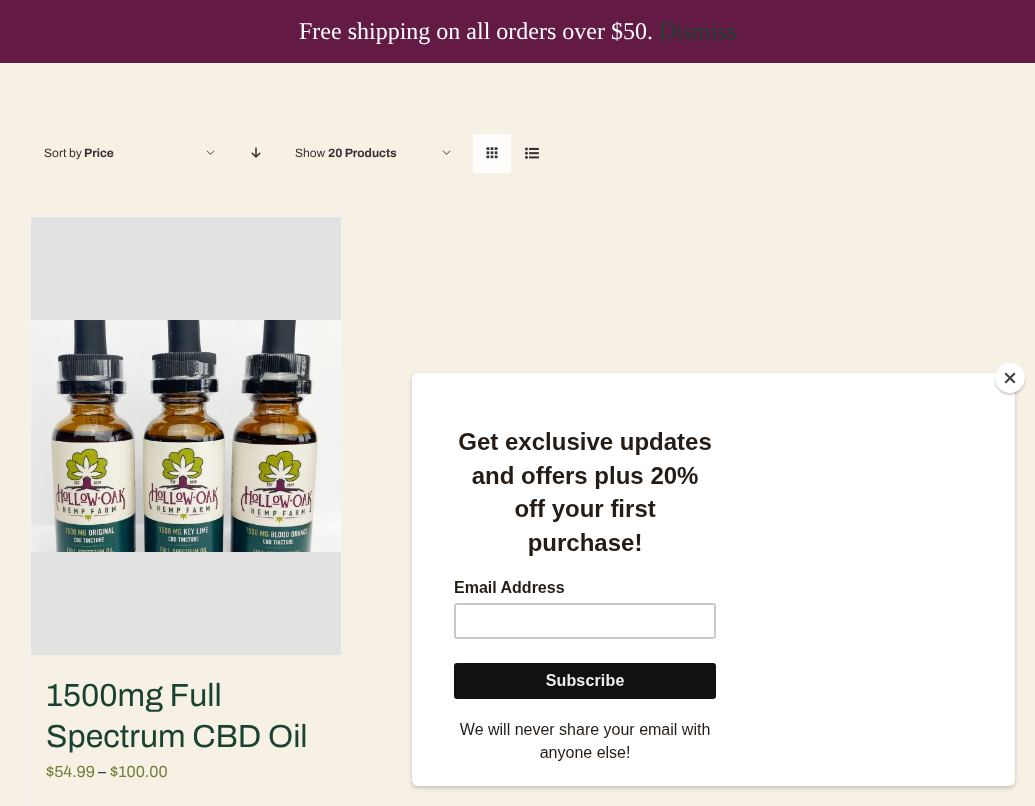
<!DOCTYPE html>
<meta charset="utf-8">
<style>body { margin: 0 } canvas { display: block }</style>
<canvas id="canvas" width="1035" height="806"></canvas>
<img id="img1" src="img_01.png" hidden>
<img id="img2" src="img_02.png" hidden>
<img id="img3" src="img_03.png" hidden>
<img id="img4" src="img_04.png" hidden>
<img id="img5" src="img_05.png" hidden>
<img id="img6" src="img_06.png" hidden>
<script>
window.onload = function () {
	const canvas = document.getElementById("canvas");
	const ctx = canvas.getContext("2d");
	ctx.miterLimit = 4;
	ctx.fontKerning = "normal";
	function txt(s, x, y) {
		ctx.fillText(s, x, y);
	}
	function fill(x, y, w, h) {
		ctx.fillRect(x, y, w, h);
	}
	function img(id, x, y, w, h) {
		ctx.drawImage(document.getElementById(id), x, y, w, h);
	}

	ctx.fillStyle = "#F7F0E4";
	fill(0, 0, 1035, 806);
	ctx.fillStyle = "#631A45";
	fill(0, 0, 1035, 63);
	img("img1", 206, 150, 9, 5);
	img("img2", 251, 147, 10, 11);
	img("img1", 442, 150, 9, 5);
	ctx.fillStyle = "#FEFDFB";
	fill(473, 134, 38, 39);
	img("img3", 486, 147, 12, 12);
	img("img4", 525, 147, 14, 12);
	ctx.fillStyle = "#F2F3F5";
	fill(30, 216, 312, 1);
	fill(341, 216, 1, 590);
	fill(30, 216, 1, 590);
	ctx.fillStyle = "#E2E2E2";
	fill(31, 217, 310, 438);
	img("img5", 31, 320, 310, 232);
	ctx.fillStyle = "rgba(0, 0, 0, 0.2)";
	ctx.filter = "blur(2px)";
	ctx.beginPath();
	ctx.roundRect(412, 375, 603, 413, 6);
	ctx.fill();
	ctx.filter = "none";
	img("img6", 412, 373, 603, 413);
	ctx.filter = "blur(1px)";
	ctx.beginPath();
	ctx.roundRect(995, 365, 30, 30, 15);
	ctx.fill();
	ctx.filter = "none";
	ctx.fillStyle = "#FFFFFF";
	ctx.beginPath();
	ctx.arc(1010, 378, 15, 0, Math.PI * 2);
	ctx.fill();
	ctx.fillStyle = "#414141";
	ctx.beginPath();
	ctx.moveTo(1014, 372.5);
	ctx.lineTo(1015.5, 374);
	ctx.lineTo(1006, 383.5);
	ctx.lineTo(1004.5, 382);
	ctx.closePath();
	ctx.fill();
	ctx.beginPath();
	ctx.moveTo(1004.5, 374);
	ctx.lineTo(1006, 372.5);
	ctx.lineTo(1015.5, 382);
	ctx.lineTo(1014, 383.5);
	ctx.closePath();
	ctx.fill();
	ctx.font = "24px Liberation Serif";
	ctx.fillStyle = "#FFFFFF";
	txt("Free shipping on all orders over $50.", 299, 39);
	ctx.fillStyle = "#194230";
	txt("Dismiss", 659, 39);
	ctx.font = "12px Archivo";
	ctx.fillStyle = "#333333";
	txt("Sort by", 44, 157);
	ctx.font = "bold 12px Archivo";
	txt("Price", 84, 157);
	ctx.font = "12px Archivo";
	txt("Show", 295, 157);
	ctx.font = "bold 12px Archivo";
	txt("20 Products", 328, 157);
	ctx.font = "32px Archivo";
	ctx.fillStyle = "#194230";
	txt("1500mg Full", 46, 706);
	txt("Spectrum CBD Oil", 46, 747);
	ctx.font = "16px Archivo";
	ctx.fillStyle = "#707F3A";
	txt("$54.99", 46, 777);
	ctx.fillStyle = "#022C28";
	txt("–", 98, 777);
	ctx.fillStyle = "#707F3A";
	txt("$100.00", 110, 777);
};
</script>
